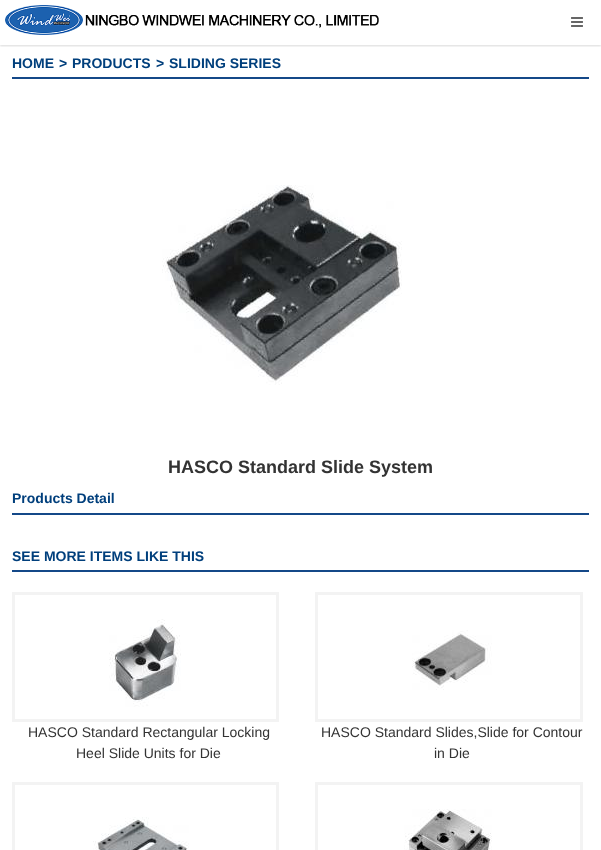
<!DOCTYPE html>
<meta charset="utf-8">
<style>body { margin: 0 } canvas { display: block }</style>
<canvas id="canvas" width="601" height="850"></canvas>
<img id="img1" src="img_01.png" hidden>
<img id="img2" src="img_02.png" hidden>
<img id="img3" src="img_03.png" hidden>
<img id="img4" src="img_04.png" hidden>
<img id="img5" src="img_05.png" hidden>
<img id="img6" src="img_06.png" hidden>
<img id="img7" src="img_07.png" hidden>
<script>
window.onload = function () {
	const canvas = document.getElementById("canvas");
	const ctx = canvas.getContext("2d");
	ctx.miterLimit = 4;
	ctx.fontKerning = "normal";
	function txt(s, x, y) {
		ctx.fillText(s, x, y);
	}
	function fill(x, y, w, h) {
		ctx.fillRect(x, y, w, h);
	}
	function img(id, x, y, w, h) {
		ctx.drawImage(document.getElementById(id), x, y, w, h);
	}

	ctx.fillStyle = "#FFFFFF";
	fill(0, 0, 601, 850);
	ctx.save();
	ctx.beginPath();
	ctx.rect(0, 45, 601, 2);
	ctx.clip();
	ctx.fillStyle = "rgba(0, 0, 0, 0.15)";
	ctx.filter = "blur(1px)";
	ctx.beginPath();
	ctx.rect(0, 1, 601, 45);
	ctx.fill();
	ctx.filter = "none";
	ctx.restore();
	img("img1", 5, 5, 374, 30);
	img("img2", 571, 17, 12, 10);
	ctx.fillStyle = "#144888";
	fill(12, 77, 577, 2);
	img("img3", 162, 185, 240, 200);
	fill(12, 513, 577, 2);
	fill(12, 570, 577, 2);
	ctx.strokeStyle = "#F3F3F3";
	ctx.lineWidth = 3;
	ctx.strokeRect(13.5, 593.5, 264, 127);
	img("img4", 109, 619, 72, 88);
	ctx.strokeRect(316.5, 593.5, 265, 127);
	img("img5", 412, 630, 80, 60);
	ctx.strokeRect(13.5, 783.5, 264, 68);
	img("img6", 93, 817, 96, 33);
	ctx.strokeRect(316.5, 783.5, 265, 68);
	img("img7", 404, 809, 88, 41);
	ctx.font = "bold 14px Liberation Sans";
	ctx.fillStyle = "#003F7C";
	txt("HOME", 12, 68);
	txt(">", 59, 68);
	txt("PRODUCTS", 72, 68);
	txt(">", 156, 68);
	txt("SLIDING SERIES", 169, 68);
	ctx.font = "bold 18px Liberation Sans";
	ctx.fillStyle = "#333333";
	txt("HASCO Standard Slide System", 168, 473);
	ctx.font = "bold 14px Liberation Sans";
	ctx.fillStyle = "#003F7C";
	txt("Products Detail", 12, 503);
	txt("SEE MORE ITEMS LIKE THIS", 12, 561);
	ctx.font = "14px Liberation Sans";
	ctx.fillStyle = "#333333";
	txt("HASCO Standard Rectangular Locking", 28, 737);
	txt("Heel Slide Units for Die", 76, 758);
	txt("HASCO Standard Slides,Slide for Contour", 321, 737);
	txt("in Die", 434, 758);
};
</script>
